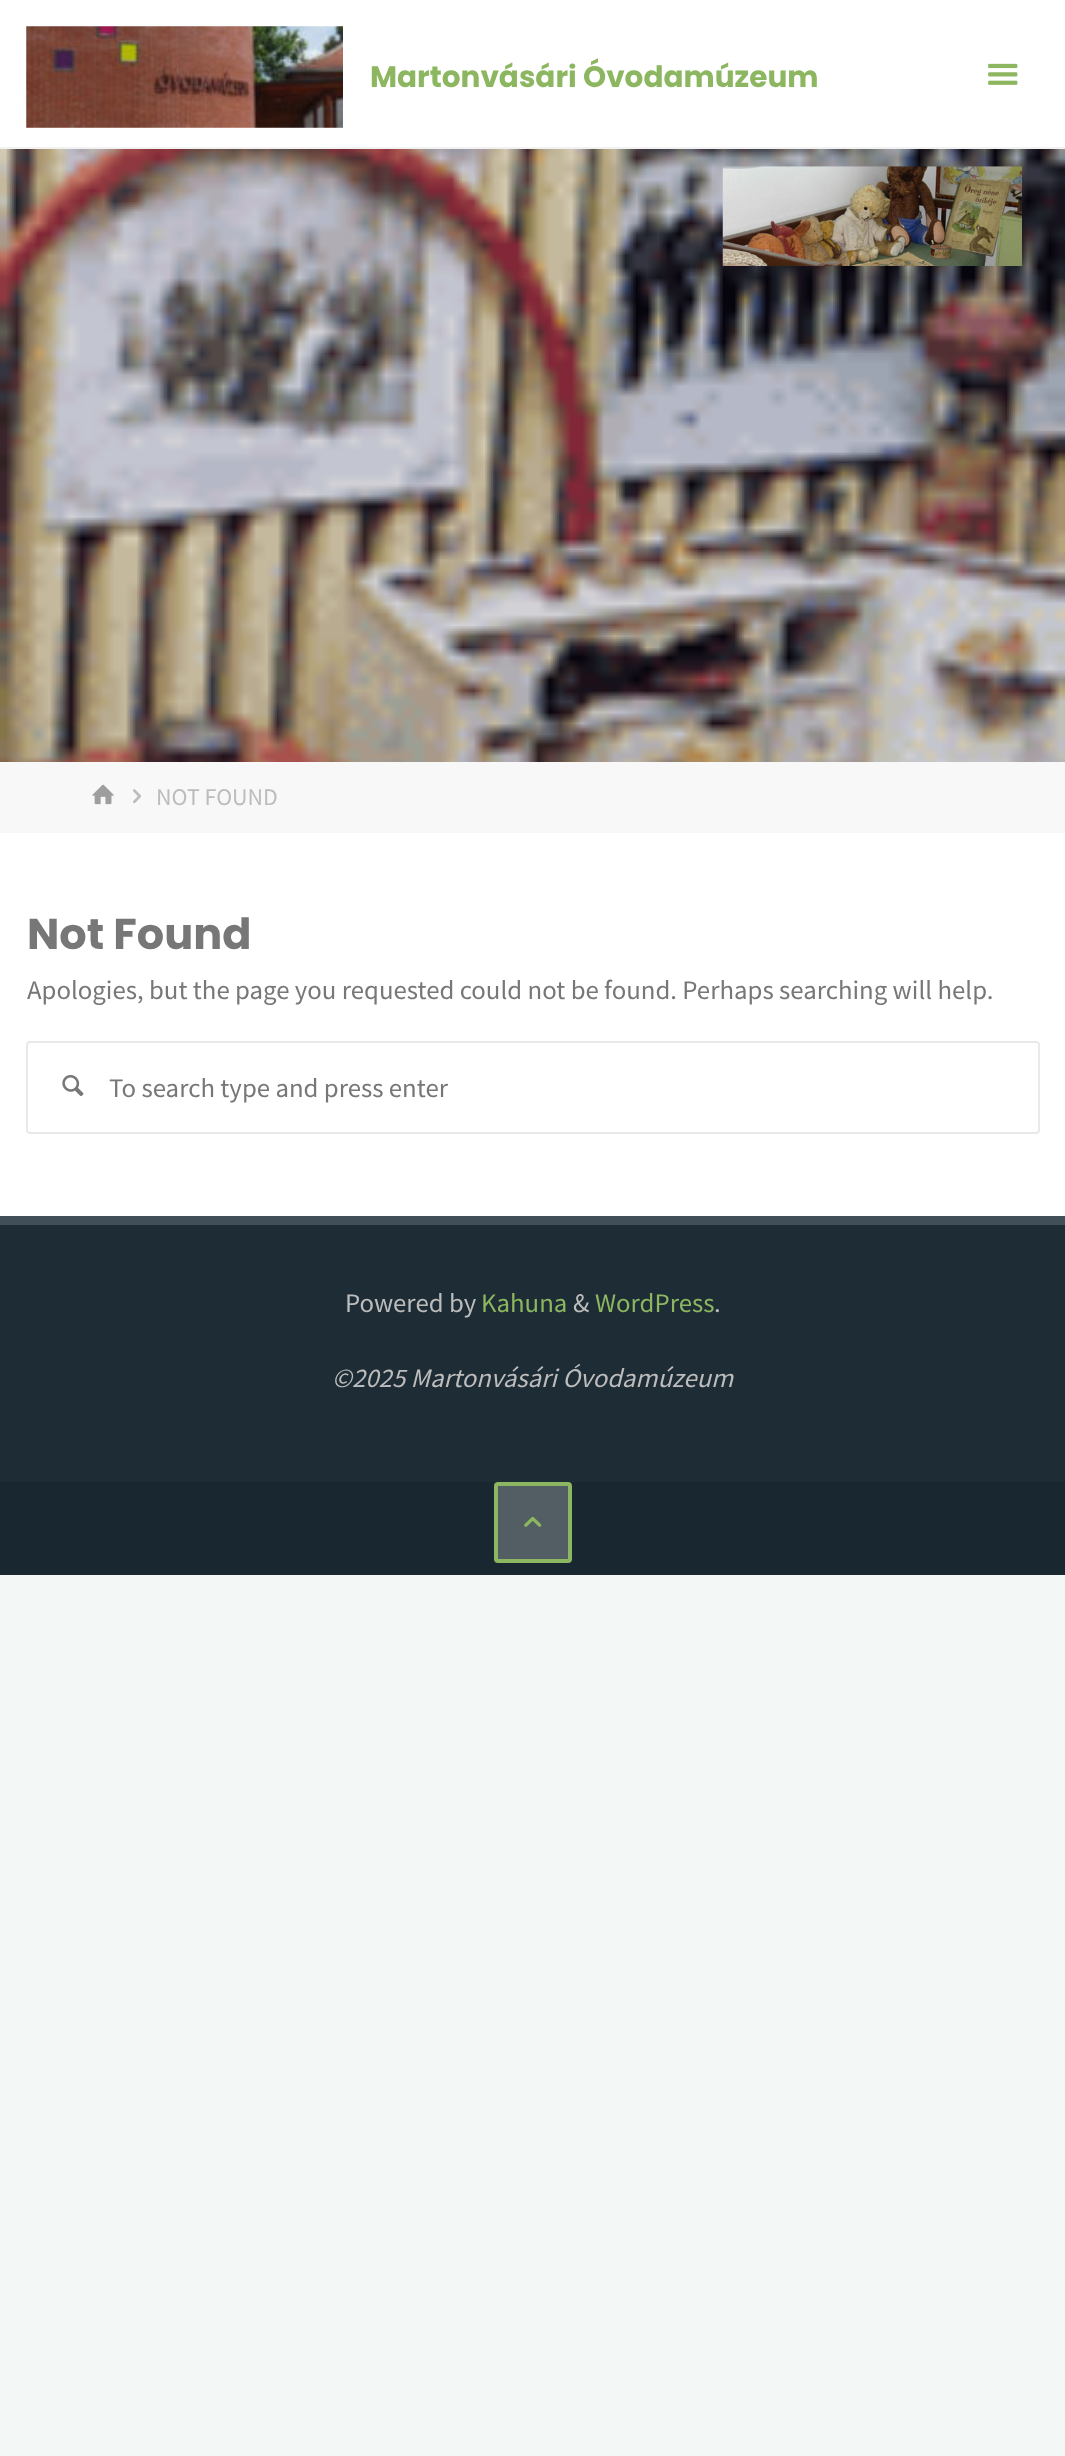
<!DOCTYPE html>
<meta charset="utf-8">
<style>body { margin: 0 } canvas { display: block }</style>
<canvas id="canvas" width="1065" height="2456"></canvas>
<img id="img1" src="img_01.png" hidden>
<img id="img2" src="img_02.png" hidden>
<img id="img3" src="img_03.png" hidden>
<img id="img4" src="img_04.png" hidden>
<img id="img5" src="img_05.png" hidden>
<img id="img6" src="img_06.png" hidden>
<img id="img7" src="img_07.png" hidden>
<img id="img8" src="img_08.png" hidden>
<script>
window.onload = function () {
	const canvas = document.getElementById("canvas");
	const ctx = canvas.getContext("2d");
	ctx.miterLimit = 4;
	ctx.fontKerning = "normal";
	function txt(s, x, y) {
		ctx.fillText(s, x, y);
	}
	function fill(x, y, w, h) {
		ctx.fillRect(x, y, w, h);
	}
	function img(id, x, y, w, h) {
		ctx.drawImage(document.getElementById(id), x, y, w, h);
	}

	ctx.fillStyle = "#F3F7F5";
	fill(0, 0, 1065, 2456);
	ctx.fillStyle = "#FFFFFF";
	fill(0, 0, 1065, 147);
	ctx.fillStyle = "#F2F2F2";
	fill(0, 147, 1065, 2);
	img("img1", 26, 26, 317, 102);
	img("img2", 988, 63, 30, 22);
	img("img3", 0, 149, 1065, 613);
	img("img4", 722, 166, 300, 100);
	ctx.fillStyle = "#F8F8F8";
	fill(0, 762, 1065, 71);
	img("img5", 92, 784, 22, 21);
	img("img6", 133, 789, 8, 15);
	ctx.fillStyle = "#FFFFFF";
	fill(0, 833, 1065, 383);
	ctx.beginPath();
	ctx.roundRect(27, 1042, 1012, 91, 3);
	ctx.strokeStyle = "#E9E9E9";
	ctx.lineWidth = 2;
	ctx.stroke();
	img("img7", 62, 1075, 22, 21);
	ctx.fillStyle = "#414F58";
	fill(0, 1216, 1065, 9);
	ctx.fillStyle = "#1E2C35";
	fill(0, 1225, 1065, 257);
	ctx.fillStyle = "#192730";
	fill(0, 1482, 1065, 93);
	ctx.fillStyle = "#535D64";
	ctx.beginPath();
	ctx.roundRect(496, 1484, 74, 77, 2);
	ctx.fill();
	ctx.strokeStyle = "#8CB65F";
	ctx.lineWidth = 4;
	ctx.stroke();
	img("img8", 524, 1516, 18, 11);
	ctx.font = "bold 29.5px Poppins";
	ctx.fillStyle = "#8CB65F";
	txt("Martonvásári Óvodamúzeum", 370, 87);
	ctx.font = "24px Source Sans Pro";
	ctx.fillStyle = "#BCBCBC";
	txt("NOT FOUND", 156, 805);
	ctx.font = "bold 43px Poppins";
	ctx.fillStyle = "#777777";
	txt("Not Found", 27, 949);
	ctx.font = "26.8px Source Sans Pro";
	txt("Apologies, but the page you requested could not be found. Perhaps searching will help.", 27, 999);
	txt("To search type and press enter", 109, 1097);
	ctx.fillStyle = "#BCBCBC";
	txt("Powered by", 345, 1312);
	ctx.fillStyle = "#8CB65F";
	txt("Kahuna", 481, 1312);
	ctx.fillStyle = "#BCBCBC";
	txt("&", 573, 1312);
	ctx.fillStyle = "#8CB65F";
	txt("WordPress", 595, 1312);
	ctx.fillStyle = "#BCBCBC";
	txt(".", 714, 1312);
	ctx.font = "italic 26.8px Source Sans Pro";
	txt("©2025 Martonvásári Óvodamúzeum", 332, 1387);
};
</script>
